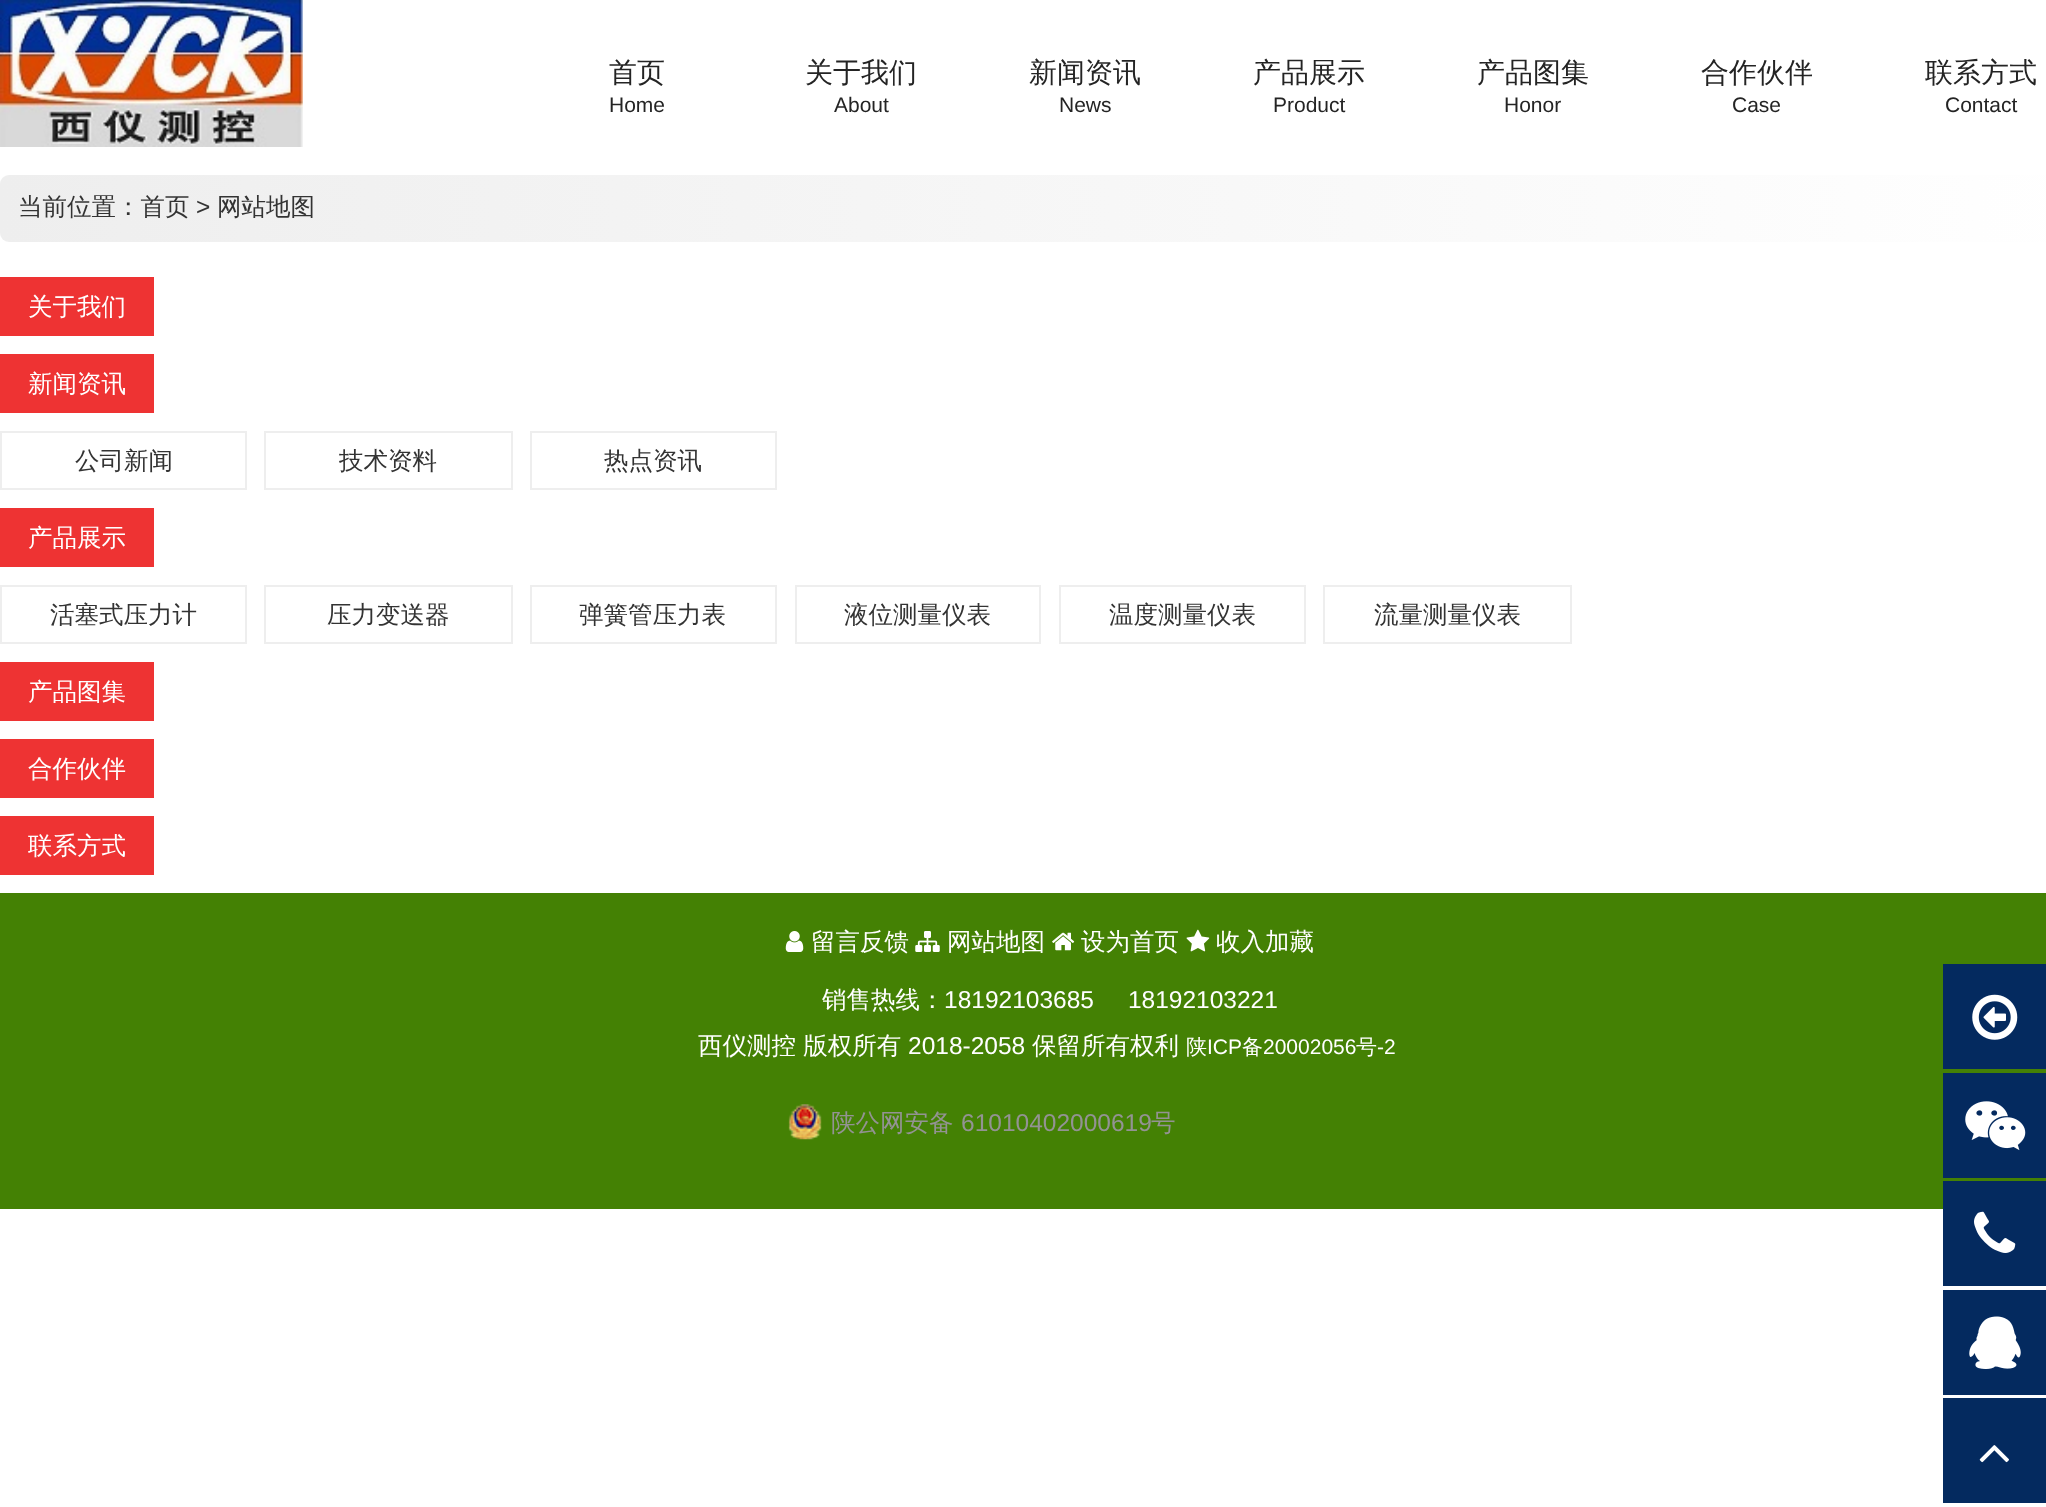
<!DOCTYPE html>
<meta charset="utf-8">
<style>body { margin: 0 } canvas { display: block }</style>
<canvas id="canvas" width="2046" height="1507"></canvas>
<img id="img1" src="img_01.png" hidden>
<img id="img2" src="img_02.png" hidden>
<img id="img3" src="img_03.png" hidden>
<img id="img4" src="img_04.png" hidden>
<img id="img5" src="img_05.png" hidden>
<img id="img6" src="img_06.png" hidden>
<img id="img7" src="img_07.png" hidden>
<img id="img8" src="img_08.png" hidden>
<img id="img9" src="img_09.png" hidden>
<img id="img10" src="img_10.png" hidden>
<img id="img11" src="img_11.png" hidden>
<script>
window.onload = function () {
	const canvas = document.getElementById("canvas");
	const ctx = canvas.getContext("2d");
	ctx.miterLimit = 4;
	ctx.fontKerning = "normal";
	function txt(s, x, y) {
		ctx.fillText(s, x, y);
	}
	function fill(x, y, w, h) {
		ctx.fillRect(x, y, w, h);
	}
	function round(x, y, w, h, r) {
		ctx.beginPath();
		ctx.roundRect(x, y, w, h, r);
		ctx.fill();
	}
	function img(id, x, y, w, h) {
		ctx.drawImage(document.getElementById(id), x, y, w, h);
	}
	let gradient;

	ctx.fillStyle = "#FFFFFF";
	fill(0, 0, 2046, 1507);
	img("img1", 0, 0, 303, 147);
	gradient = ctx.createLinearGradient(0, 208, 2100, 208);
	gradient.addColorStop(0, "#EEEEEE");
	gradient.addColorStop(1, "#FFFFFF");
	ctx.fillStyle = gradient;
	round(0, 175, 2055, 67, 9);
	ctx.fillStyle = "#EE3333";
	fill(0, 277, 154, 59);
	fill(0, 354, 154, 59);
	ctx.strokeStyle = "#EEEEEE";
	ctx.lineWidth = 2;
	ctx.strokeRect(1, 432, 245, 57);
	ctx.strokeRect(265, 432, 247, 57);
	ctx.strokeRect(531, 432, 245, 57);
	fill(0, 508, 154, 59);
	ctx.strokeRect(1, 586, 245, 57);
	ctx.strokeRect(265, 586, 247, 57);
	ctx.strokeRect(531, 586, 245, 57);
	ctx.strokeRect(796, 586, 244, 57);
	ctx.strokeRect(1060, 586, 245, 57);
	ctx.strokeRect(1324, 586, 247, 57);
	fill(0, 662, 154, 59);
	fill(0, 739, 154, 59);
	fill(0, 816, 154, 59);
	ctx.fillStyle = "#448104";
	fill(0, 893, 2046, 316);
	img("img2", 785, 931, 19, 21);
	img("img3", 915, 931, 25, 21);
	img("img4", 1052, 932, 23, 19);
	img("img5", 1186, 929, 24, 23);
	img("img6", 788, 1104, 34, 36);
	ctx.fillStyle = "#042A5F";
	fill(1943, 964, 103, 105);
	img("img7", 1972, 994, 46, 46);
	fill(1943, 1073, 103, 105);
	img("img8", 1965, 1101, 61, 50);
	fill(1943, 1181, 103, 105);
	img("img9", 1974, 1211, 42, 42);
	fill(1943, 1290, 103, 105);
	img("img10", 1969, 1316, 52, 53);
	fill(1943, 1398, 103, 105);
	img("img11", 1979, 1445, 30, 18);
	ctx.font = "500 28px WenQuanYi Zen Hei";
	ctx.fillStyle = "#242424";
	txt("首页", 609, 82);
	ctx.font = "21px Liberation Sans";
	txt("Home", 609, 112);
	ctx.font = "500 28px WenQuanYi Zen Hei";
	txt("关于我们", 805, 82);
	ctx.font = "21px Liberation Sans";
	txt("About", 834, 112);
	ctx.font = "500 28px WenQuanYi Zen Hei";
	txt("新闻资讯", 1029, 82);
	ctx.font = "21px Liberation Sans";
	txt("News", 1059, 112);
	ctx.font = "500 28px WenQuanYi Zen Hei";
	txt("产品展示", 1253, 82);
	ctx.font = "21px Liberation Sans";
	txt("Product", 1273, 112);
	ctx.font = "500 28px WenQuanYi Zen Hei";
	txt("产品图集", 1477, 82);
	ctx.font = "21px Liberation Sans";
	txt("Honor", 1504, 112);
	ctx.font = "500 28px WenQuanYi Zen Hei";
	txt("合作伙伴", 1701, 82);
	ctx.font = "21px Liberation Sans";
	txt("Case", 1732, 112);
	ctx.font = "500 28px WenQuanYi Zen Hei";
	txt("联系方式", 1925, 82);
	ctx.font = "21px Liberation Sans";
	txt("Contact", 1945, 112);
	ctx.font = "500 24.5px WenQuanYi Zen Hei";
	ctx.fillStyle = "#333333";
	txt("当前位置：首页", 18, 215);
	ctx.font = "24.5px Liberation Sans";
	txt(">", 196, 215);
	ctx.font = "500 24.5px WenQuanYi Zen Hei";
	txt("网站地图", 217, 215);
	ctx.fillStyle = "#FFFFFF";
	txt("关于我们", 28, 315);
	txt("新闻资讯", 28, 392);
	ctx.fillStyle = "#333333";
	txt("公司新闻", 75, 469);
	txt("技术资料", 339, 469);
	txt("热点资讯", 604, 469);
	ctx.fillStyle = "#FFFFFF";
	txt("产品展示", 28, 546);
	ctx.fillStyle = "#333333";
	txt("活塞式压力计", 50, 623);
	txt("压力变送器", 327, 623);
	txt("弹簧管压力表", 579, 623);
	txt("液位测量仪表", 844, 623);
	txt("温度测量仪表", 1109, 623);
	txt("流量测量仪表", 1374, 623);
	ctx.fillStyle = "#FFFFFF";
	txt("产品图集", 28, 700);
	txt("合作伙伴", 28, 777);
	txt("联系方式", 28, 854);
	txt("留言反馈", 811, 950);
	txt("网站地图", 947, 950);
	txt("设为首页", 1081, 950);
	txt("收入加藏", 1216, 950);
	txt("销售热线：", 822, 1008);
	ctx.font = "24.5px Liberation Sans";
	txt("18192103685     18192103221", 944, 1008);
	ctx.font = "500 24.5px WenQuanYi Zen Hei";
	txt("西仪测控 版权所有", 698, 1054);
	ctx.font = "24.5px Liberation Sans";
	txt("2018-2058", 908, 1054);
	ctx.font = "500 24.5px WenQuanYi Zen Hei";
	txt("保留所有权利", 1032, 1054);
	ctx.font = "500 21px WenQuanYi Zen Hei";
	txt("陕", 1186, 1054);
	ctx.font = "21px Liberation Sans";
	txt("ICP", 1207, 1054);
	ctx.font = "500 21px WenQuanYi Zen Hei";
	txt("备", 1242, 1054);
	ctx.font = "21px Liberation Sans";
	txt("20002056", 1263, 1054);
	ctx.font = "500 21px WenQuanYi Zen Hei";
	txt("号", 1356, 1054);
	ctx.font = "21px Liberation Sans";
	txt("-2", 1377, 1054);
	ctx.font = "500 24.5px WenQuanYi Zen Hei";
	ctx.fillStyle = "#939393";
	txt("陕公网安备", 831, 1131);
	ctx.font = "24.5px Liberation Sans";
	txt("61010402000619", 961, 1131);
	ctx.font = "500 24.5px WenQuanYi Zen Hei";
	txt("号", 1151, 1131);
};
</script>
